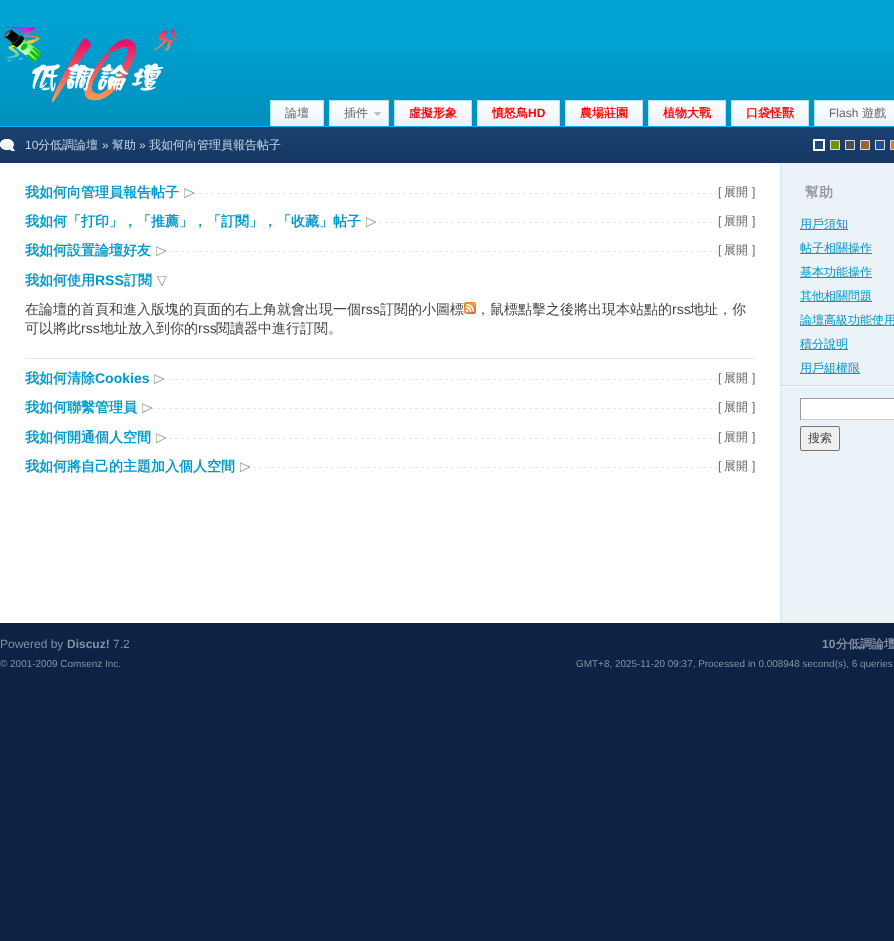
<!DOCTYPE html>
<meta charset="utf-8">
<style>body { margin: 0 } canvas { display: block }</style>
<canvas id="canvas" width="894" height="941"></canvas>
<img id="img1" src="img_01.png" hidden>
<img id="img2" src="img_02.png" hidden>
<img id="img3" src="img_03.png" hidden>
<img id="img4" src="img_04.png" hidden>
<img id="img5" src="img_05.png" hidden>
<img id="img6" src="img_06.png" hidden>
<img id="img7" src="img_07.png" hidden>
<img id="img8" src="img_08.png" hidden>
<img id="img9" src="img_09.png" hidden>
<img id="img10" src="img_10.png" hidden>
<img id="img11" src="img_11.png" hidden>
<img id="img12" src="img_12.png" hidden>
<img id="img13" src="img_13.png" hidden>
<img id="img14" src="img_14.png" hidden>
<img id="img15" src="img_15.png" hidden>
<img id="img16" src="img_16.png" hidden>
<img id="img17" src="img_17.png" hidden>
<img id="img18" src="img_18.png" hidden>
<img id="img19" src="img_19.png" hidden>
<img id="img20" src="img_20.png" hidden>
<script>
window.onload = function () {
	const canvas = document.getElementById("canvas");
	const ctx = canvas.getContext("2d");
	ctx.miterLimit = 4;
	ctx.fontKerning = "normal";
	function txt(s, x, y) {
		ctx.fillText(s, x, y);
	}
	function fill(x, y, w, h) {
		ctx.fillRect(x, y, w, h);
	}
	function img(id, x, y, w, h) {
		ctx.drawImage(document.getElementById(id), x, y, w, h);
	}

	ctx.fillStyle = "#0D2345";
	fill(0, 0, 894, 941);
	img("img1", 0, 127, 894, 36);
	ctx.fillStyle = "#00A2D2";
	fill(0, 0, 894, 50);
	img("img2", 0, 50, 894, 76);
	ctx.fillStyle = "#00B2E8";
	fill(0, 126, 894, 1);
	img("img3", 0, 26, 190, 77);
	ctx.fillStyle = "#EBF4FD";
	fill(271, 119, 52, 7);
	img("img4", 271, 101, 52, 18);
	ctx.fillStyle = "#B0E4EF";
	fill(270, 100, 54, 1);
	fill(323, 100, 1, 26);
	fill(270, 100, 1, 26);
	ctx.fillStyle = "#EBF4FD";
	fill(330, 119, 58, 7);
	img("img5", 330, 101, 58, 18);
	img("img6", 374, 112, 7, 4);
	ctx.fillStyle = "#B0E4EF";
	fill(329, 100, 60, 1);
	fill(388, 100, 1, 26);
	fill(329, 100, 1, 26);
	ctx.fillStyle = "#EBF4FD";
	fill(395, 119, 76, 7);
	img("img7", 395, 101, 76, 18);
	ctx.fillStyle = "#B0E4EF";
	fill(394, 100, 78, 1);
	fill(471, 100, 1, 26);
	fill(394, 100, 1, 26);
	ctx.fillStyle = "#EBF4FD";
	fill(478, 119, 81, 7);
	img("img8", 478, 101, 81, 18);
	ctx.fillStyle = "#B0E4EF";
	fill(477, 100, 83, 1);
	fill(559, 100, 1, 26);
	fill(477, 100, 1, 26);
	ctx.fillStyle = "#EBF4FD";
	fill(566, 119, 76, 7);
	img("img7", 566, 101, 76, 18);
	ctx.fillStyle = "#B0E4EF";
	fill(565, 100, 78, 1);
	fill(642, 100, 1, 26);
	fill(565, 100, 1, 26);
	ctx.fillStyle = "#EBF4FD";
	fill(649, 119, 76, 7);
	img("img7", 649, 101, 76, 18);
	ctx.fillStyle = "#B0E4EF";
	fill(648, 100, 78, 1);
	fill(725, 100, 1, 26);
	fill(648, 100, 1, 26);
	ctx.fillStyle = "#EBF4FD";
	fill(732, 119, 76, 7);
	img("img7", 732, 101, 76, 18);
	ctx.fillStyle = "#B0E4EF";
	fill(731, 100, 78, 1);
	fill(808, 100, 1, 26);
	fill(731, 100, 1, 26);
	ctx.fillStyle = "#EBF4FD";
	fill(815, 119, 79, 7);
	img("img9", 815, 101, 79, 18);
	ctx.fillStyle = "#B0E4EF";
	fill(814, 100, 80, 1);
	fill(814, 100, 1, 26);
	ctx.fillStyle = "#1E4B7E";
	ctx.beginPath();
	ctx.rect(814, 140, 10, 10);
	ctx.fill();
	ctx.strokeStyle = "#FFFFFF";
	ctx.lineWidth = 2;
	ctx.stroke();
	ctx.fillStyle = "#669900";
	ctx.beginPath();
	ctx.rect(830.5, 140.5, 9, 9);
	ctx.fill();
	ctx.strokeStyle = "#DDDDDD";
	ctx.lineWidth = 1;
	ctx.stroke();
	ctx.fillStyle = "#505050";
	ctx.beginPath();
	ctx.rect(845.5, 140.5, 9, 9);
	ctx.fill();
	ctx.stroke();
	ctx.fillStyle = "#996633";
	ctx.beginPath();
	ctx.rect(860.5, 140.5, 9, 9);
	ctx.fill();
	ctx.stroke();
	ctx.fillStyle = "#244D8F";
	ctx.beginPath();
	ctx.rect(875.5, 140.5, 9, 9);
	ctx.fill();
	ctx.stroke();
	ctx.fillStyle = "#E77B0F";
	ctx.beginPath();
	ctx.rect(890.5, 140.5, 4, 9);
	ctx.fill();
	ctx.stroke();
	img("img10", 0, 139, 15, 12);
	ctx.fillStyle = "#FFFFFF";
	fill(0, 163, 780, 460);
	img("img11", 780, 163, 114, 460);
	img("img12", 194, 193, 524, 1);
	img("img13", 184, 188, 10, 10);
	img("img14", 379, 222, 339, 1);
	img("img13", 366, 217, 10, 10);
	img("img15", 169, 251, 549, 1);
	img("img13", 156, 246, 10, 10);
	img("img16", 157, 276, 10, 10);
	ctx.fillStyle = "#E6E7E1";
	fill(25, 358, 730, 1);
	img("img17", 464, 302, 12, 12);
	img("img18", 164, 379, 554, 1);
	img("img13", 154, 374, 10, 10);
	img("img19", 152, 408, 566, 1);
	img("img13", 142, 403, 10, 10);
	img("img15", 169, 438, 549, 1);
	img("img13", 156, 433, 10, 10);
	img("img20", 253, 467, 465, 1);
	img("img13", 240, 462, 10, 10);
	ctx.fillStyle = "#0099CC";
	fill(800, 229, 48, 1);
	fill(800, 253, 72, 1);
	fill(800, 277, 72, 1);
	fill(800, 301, 72, 1);
	fill(800, 325, 94, 1);
	fill(800, 349, 48, 1);
	fill(800, 373, 60, 1);
	ctx.fillStyle = "#C8DCEC";
	fill(780, 385, 114, 1);
	ctx.fillStyle = "#FFFFFF";
	fill(780, 386, 114, 1);
	fill(801, 399, 93, 20);
	ctx.fillStyle = "#999999";
	fill(800, 398, 94, 1);
	ctx.fillStyle = "#CCCCCC";
	fill(800, 419, 94, 1);
	ctx.fillStyle = "#999999";
	fill(800, 398, 1, 22);
	ctx.fillStyle = "#EFEFEF";
	ctx.beginPath();
	ctx.roundRect(800.5, 426.5, 39, 24, 1.5);
	ctx.fill();
	ctx.strokeStyle = "#767676";
	ctx.stroke();
	ctx.font = "500 12px WenQuanYi Zen Hei";
	ctx.fillStyle = "#666666";
	txt("論壇", 285, 117);
	txt("插件", 344, 117);
	ctx.font = "bold 12px WenQuanYi Zen Hei";
	ctx.fillStyle = "#FF0000";
	txt("虛擬形象", 409, 117);
	txt("憤怒鳥", 492, 117);
	ctx.font = "bold 12px Liberation Sans";
	txt("HD", 528, 117);
	ctx.font = "bold 12px WenQuanYi Zen Hei";
	txt("農場莊園", 580, 117);
	txt("植物大戰", 663, 117);
	txt("口袋怪獸", 746, 117);
	ctx.font = "12px Liberation Sans";
	ctx.fillStyle = "#666666";
	txt("Flash", 829, 117);
	ctx.font = "500 12px WenQuanYi Zen Hei";
	txt("遊戲", 862, 117);
	ctx.font = "12px Liberation Sans";
	ctx.fillStyle = "#C3D3E4";
	txt("10", 25, 149);
	ctx.font = "500 12px WenQuanYi Zen Hei";
	txt("分低調論壇", 38, 149);
	ctx.font = "12px Liberation Sans";
	txt("»", 102, 149);
	ctx.font = "500 12px WenQuanYi Zen Hei";
	txt("幫助", 112, 149);
	ctx.font = "12px Liberation Sans";
	txt("»", 139, 149);
	ctx.font = "500 12px WenQuanYi Zen Hei";
	txt("我如何向管理員報告帖子", 149, 149);
	ctx.font = "bold 14px WenQuanYi Zen Hei";
	ctx.fillStyle = "#0099CC";
	txt("我如何向管理員報告帖子", 25, 197);
	ctx.font = "12px Liberation Sans";
	ctx.fillStyle = "#666666";
	txt("[", 718, 196);
	ctx.font = "500 12px WenQuanYi Zen Hei";
	txt("展開", 724, 196);
	ctx.font = "12px Liberation Sans";
	txt("]", 752, 196);
	ctx.font = "bold 14px WenQuanYi Zen Hei";
	ctx.fillStyle = "#0099CC";
	txt("我如何「打印」，「推薦」，「訂閱」，「收藏」帖子", 25, 226);
	ctx.font = "12px Liberation Sans";
	ctx.fillStyle = "#666666";
	txt("[", 718, 225);
	ctx.font = "500 12px WenQuanYi Zen Hei";
	txt("展開", 724, 225);
	ctx.font = "12px Liberation Sans";
	txt("]", 752, 225);
	ctx.font = "bold 14px WenQuanYi Zen Hei";
	ctx.fillStyle = "#0099CC";
	txt("我如何設置論壇好友", 25, 255);
	ctx.font = "12px Liberation Sans";
	ctx.fillStyle = "#666666";
	txt("[", 718, 254);
	ctx.font = "500 12px WenQuanYi Zen Hei";
	txt("展開", 724, 254);
	ctx.font = "12px Liberation Sans";
	txt("]", 752, 254);
	ctx.font = "bold 14px WenQuanYi Zen Hei";
	ctx.fillStyle = "#0099CC";
	txt("我如何使用", 25, 285);
	ctx.font = "bold 14px Liberation Sans";
	txt("RSS", 95, 285);
	ctx.font = "bold 14px WenQuanYi Zen Hei";
	txt("訂閱", 124, 285);
	ctx.font = "500 14px WenQuanYi Zen Hei";
	ctx.fillStyle = "#444444";
	txt("在論壇的首頁和進入版塊的頁面的右上角就會出現一個", 25, 314);
	ctx.font = "14px Liberation Sans";
	txt("rss", 361, 314);
	ctx.font = "500 14px WenQuanYi Zen Hei";
	txt("訂閱的小圖標", 380, 314);
	txt("，鼠標點擊之後將出現本站點的", 476, 314);
	ctx.font = "14px Liberation Sans";
	txt("rss", 672, 314);
	ctx.font = "500 14px WenQuanYi Zen Hei";
	txt("地址，你", 690, 314);
	txt("可以將此", 25, 333);
	ctx.font = "14px Liberation Sans";
	txt("rss", 81, 333);
	ctx.font = "500 14px WenQuanYi Zen Hei";
	txt("地址放入到你的", 100, 333);
	ctx.font = "14px Liberation Sans";
	txt("rss", 198, 333);
	ctx.font = "500 14px WenQuanYi Zen Hei";
	txt("閱讀器中進行訂閱。", 216, 333);
	ctx.font = "bold 14px WenQuanYi Zen Hei";
	ctx.fillStyle = "#0099CC";
	txt("我如何清除", 25, 383);
	ctx.font = "bold 14px Liberation Sans";
	txt("Cookies", 95, 383);
	ctx.font = "12px Liberation Sans";
	ctx.fillStyle = "#666666";
	txt("[", 718, 382);
	ctx.font = "500 12px WenQuanYi Zen Hei";
	txt("展開", 724, 382);
	ctx.font = "12px Liberation Sans";
	txt("]", 752, 382);
	ctx.font = "bold 14px WenQuanYi Zen Hei";
	ctx.fillStyle = "#0099CC";
	txt("我如何聯繫管理員", 25, 412);
	ctx.font = "12px Liberation Sans";
	ctx.fillStyle = "#666666";
	txt("[", 718, 411);
	ctx.font = "500 12px WenQuanYi Zen Hei";
	txt("展開", 724, 411);
	ctx.font = "12px Liberation Sans";
	txt("]", 752, 411);
	ctx.font = "bold 14px WenQuanYi Zen Hei";
	ctx.fillStyle = "#0099CC";
	txt("我如何開通個人空間", 25, 442);
	ctx.font = "12px Liberation Sans";
	ctx.fillStyle = "#666666";
	txt("[", 718, 441);
	ctx.font = "500 12px WenQuanYi Zen Hei";
	txt("展開", 724, 441);
	ctx.font = "12px Liberation Sans";
	txt("]", 752, 441);
	ctx.font = "bold 14px WenQuanYi Zen Hei";
	ctx.fillStyle = "#0099CC";
	txt("我如何將自己的主題加入個人空間", 25, 471);
	ctx.font = "12px Liberation Sans";
	ctx.fillStyle = "#666666";
	txt("[", 718, 470);
	ctx.font = "500 12px WenQuanYi Zen Hei";
	txt("展開", 724, 470);
	ctx.font = "12px Liberation Sans";
	txt("]", 752, 470);
	ctx.font = "bold 14px WenQuanYi Zen Hei";
	ctx.fillStyle = "#999999";
	txt("幫助", 805, 197);
	ctx.font = "500 12px WenQuanYi Zen Hei";
	ctx.fillStyle = "#0099CC";
	txt("用戶須知", 800, 228);
	txt("帖子相關操作", 800, 252);
	txt("基本功能操作", 800, 276);
	txt("其他相關問題", 800, 300);
	txt("論壇高級功能使用", 800, 324);
	txt("積分說明", 800, 348);
	txt("用戶組權限", 800, 372);
	ctx.fillStyle = "#444444";
	txt("搜索", 808, 442);
	ctx.font = "12px Liberation Sans";
	ctx.fillStyle = "#8691A2";
	txt("Powered by", 0, 648);
	ctx.font = "bold 12px Liberation Sans";
	txt("Discuz!", 67, 648);
	ctx.font = "12px Liberation Sans";
	txt("7.2", 113, 648);
	ctx.font = "9.95px Liberation Sans";
	txt("© 2001-2009 Comsenz Inc.", 0, 667);
	ctx.font = "bold 12px Liberation Sans";
	txt("10", 822, 648);
	ctx.font = "bold 12px WenQuanYi Zen Hei";
	txt("分低調論壇", 836, 648);
	ctx.font = "9.95px Liberation Sans";
	txt("GMT+8, 2025-11-20 09:37, Processed in 0.008948 second(s), 6 queries", 576, 667);
};
</script>
